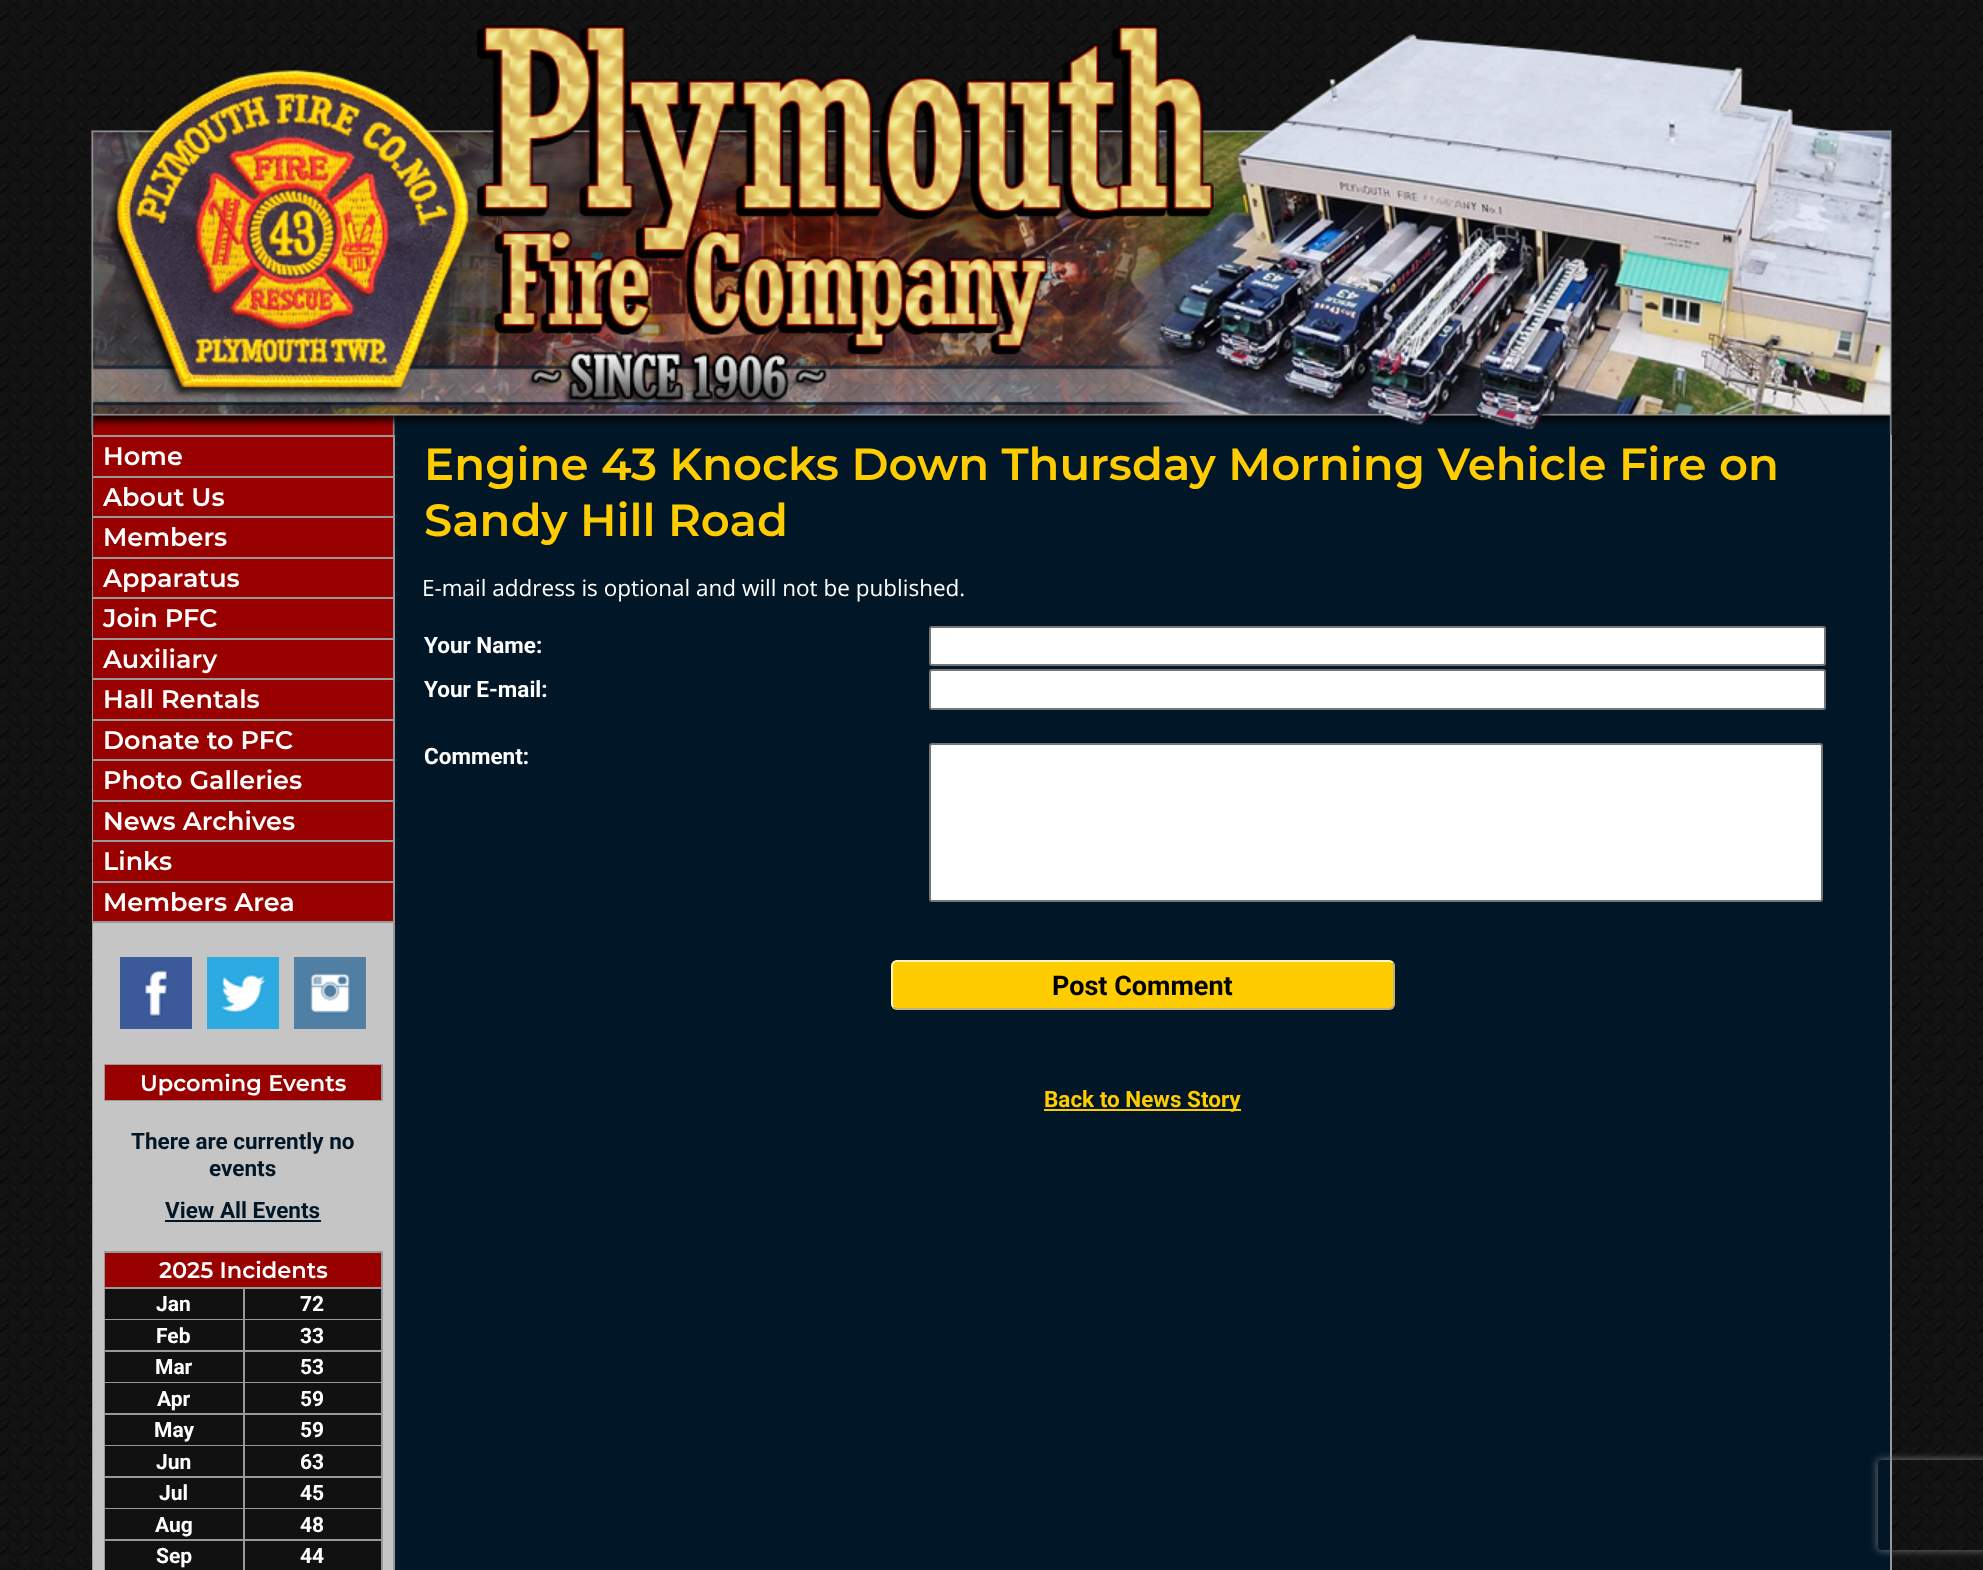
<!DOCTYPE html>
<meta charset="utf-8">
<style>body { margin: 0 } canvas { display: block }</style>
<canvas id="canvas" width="1983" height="1570"></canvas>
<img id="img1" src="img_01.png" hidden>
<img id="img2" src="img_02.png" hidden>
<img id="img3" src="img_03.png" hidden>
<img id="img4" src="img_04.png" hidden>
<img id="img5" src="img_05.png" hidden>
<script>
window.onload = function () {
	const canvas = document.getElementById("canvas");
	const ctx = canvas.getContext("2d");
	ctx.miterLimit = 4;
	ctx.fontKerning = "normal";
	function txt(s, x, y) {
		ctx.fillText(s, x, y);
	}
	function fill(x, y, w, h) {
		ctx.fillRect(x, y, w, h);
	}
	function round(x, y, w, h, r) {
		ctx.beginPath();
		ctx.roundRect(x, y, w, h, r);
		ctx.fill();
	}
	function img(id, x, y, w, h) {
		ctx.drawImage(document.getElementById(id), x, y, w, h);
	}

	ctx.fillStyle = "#FFFFFF";
	fill(0, 0, 1983, 1570);
	img("img1", 0, 0, 1983, 1570);
	img("img2", 91, 25, 1801, 410);
	ctx.fillStyle = "#999999";
	fill(92, 435, 1, 1135);
	ctx.fillStyle = "#C5C5C5";
	fill(93, 923, 300, 647);
	ctx.fillStyle = "#999999";
	fill(93, 435, 300, 2);
	ctx.fillStyle = "#990000";
	fill(93, 437, 300, 484);
	ctx.fillStyle = "#999999";
	fill(93, 476, 300, 2);
	fill(93, 516, 300, 2);
	fill(93, 557, 300, 2);
	fill(93, 597, 300, 2);
	fill(93, 638, 300, 2);
	fill(93, 678, 300, 2);
	fill(93, 719, 300, 2);
	fill(93, 759, 300, 2);
	fill(93, 800, 300, 2);
	fill(93, 840, 300, 2);
	fill(93, 881, 300, 2);
	fill(93, 921, 300, 2);
	img("img3", 120, 957, 72, 72);
	img("img4", 207, 957, 72, 72);
	img("img5", 294, 957, 72, 72);
	fill(104, 1064, 279, 37);
	ctx.fillStyle = "#990000";
	fill(105, 1065, 276, 35);
	ctx.fillStyle = "#011728";
	fill(165, 1220, 156, 2);
	ctx.fillStyle = "#999999";
	fill(104, 1251, 279, 319);
	ctx.fillStyle = "#990000";
	fill(105, 1253, 276, 34);
	ctx.fillStyle = "#111111";
	fill(105, 1289, 138, 30);
	fill(245, 1289, 136, 30);
	fill(105, 1320, 138, 30);
	fill(245, 1320, 136, 30);
	fill(105, 1352, 138, 30);
	fill(245, 1352, 136, 30);
	fill(105, 1383, 138, 30);
	fill(245, 1383, 136, 30);
	fill(105, 1415, 138, 30);
	fill(245, 1415, 136, 30);
	fill(105, 1446, 138, 30);
	fill(245, 1446, 136, 30);
	fill(105, 1478, 138, 30);
	fill(245, 1478, 136, 30);
	fill(105, 1509, 138, 30);
	fill(245, 1509, 136, 30);
	fill(105, 1541, 138, 29);
	fill(245, 1541, 136, 29);
	ctx.fillStyle = "#999999";
	fill(393, 435, 2, 1135);
	ctx.fillStyle = "#011728";
	fill(395, 435, 1495, 1135);
	ctx.fillStyle = "#FFFFFF";
	ctx.beginPath();
	ctx.roundRect(930, 627, 895, 38, 2);
	ctx.fill();
	ctx.strokeStyle = "#767676";
	ctx.lineWidth = 2;
	ctx.stroke();
	ctx.beginPath();
	ctx.roundRect(930, 670, 895, 39, 2);
	ctx.fill();
	ctx.stroke();
	ctx.beginPath();
	ctx.roundRect(930, 744, 892, 157, 2);
	ctx.fill();
	ctx.stroke();
	ctx.fillStyle = "#FFCC00";
	round(891, 960, 504, 50, 6);
	ctx.beginPath();
	ctx.moveTo(1392.5, 962.5);
	ctx.bezierCurveTo(1393.5, 963.5, 1394, 964.5, 1394, 966);
	ctx.lineTo(1394, 1003.5);
	ctx.bezierCurveTo(1394, 1005, 1393.5, 1006, 1392.5, 1007);
	ctx.bezierCurveTo(1391.5, 1008, 1390.5, 1009, 1389, 1009);
	ctx.lineTo(897, 1009);
	ctx.bezierCurveTo(895.5, 1009, 894.5, 1008, 893.5, 1007);
	ctx.strokeStyle = "#AAAAAA";
	ctx.lineWidth = 1.5;
	ctx.stroke();
	ctx.beginPath();
	ctx.moveTo(893.5, 1007);
	ctx.bezierCurveTo(892.5, 1006, 892, 1005, 892, 1003.5);
	ctx.lineTo(892, 966);
	ctx.bezierCurveTo(892, 964.5, 892.5, 963.5, 893.5, 962.5);
	ctx.bezierCurveTo(894.5, 961.5, 895.5, 961, 897, 961);
	ctx.lineTo(1389, 961);
	ctx.bezierCurveTo(1390.5, 961, 1391.5, 961.5, 1392.5, 962.5);
	ctx.strokeStyle = "#FFFFFF";
	ctx.stroke();
	fill(1044, 1109, 197, 2);
	ctx.fillStyle = "#999999";
	fill(1890, 435, 2, 1135);
	ctx.save();
	ctx.beginPath();
	ctx.moveTo(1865, 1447);
	ctx.lineTo(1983, 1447);
	ctx.lineTo(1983, 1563);
	ctx.lineTo(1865, 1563);
	ctx.closePath();
	ctx.moveTo(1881, 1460);
	ctx.lineTo(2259, 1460);
	ctx.bezierCurveTo(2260.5, 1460, 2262, 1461.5, 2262, 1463);
	ctx.lineTo(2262, 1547);
	ctx.bezierCurveTo(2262, 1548.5, 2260.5, 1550, 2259, 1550);
	ctx.lineTo(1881, 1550);
	ctx.bezierCurveTo(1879.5, 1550, 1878, 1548.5, 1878, 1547);
	ctx.lineTo(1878, 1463);
	ctx.bezierCurveTo(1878, 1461.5, 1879.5, 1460, 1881, 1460);
	ctx.closePath();
	ctx.clip("evenodd");
	ctx.fillStyle = "#808080";
	ctx.filter = "blur(4px)";
	ctx.beginPath();
	ctx.roundRect(1878, 1460, 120, 90, 3);
	ctx.fill();
	ctx.filter = "none";
	ctx.restore();
	ctx.font = "600 25.5px Montserrat";
	ctx.fillStyle = "#FFFFFF";
	txt("Home", 103, 465);
	txt("About Us", 103, 506);
	txt("Members", 103, 546);
	txt("Apparatus", 103, 587);
	txt("Join PFC", 103, 627);
	txt("Auxiliary", 103, 668);
	txt("Hall Rentals", 103, 708);
	txt("Donate to PFC", 103, 749);
	txt("Photo Galleries", 103, 789);
	txt("News Archives", 103, 830);
	txt("Links", 103, 870);
	txt("Members Area", 103, 911);
	ctx.font = "600 22.5px Montserrat";
	txt("Upcoming Events", 140, 1091);
	ctx.font = "bold 22.5px Roboto";
	ctx.fillStyle = "#011728";
	txt("There are currently no", 131, 1149);
	txt("events", 209, 1176);
	txt("View All Events", 165, 1218);
	ctx.font = "600 22.5px Montserrat";
	ctx.fillStyle = "#FFFFFF";
	txt("2025 Incidents", 159, 1278);
	ctx.font = "bold 21px Roboto";
	txt("Jan", 156, 1311);
	txt("72", 300, 1311);
	txt("Feb", 156, 1343);
	txt("33", 300, 1343);
	txt("Mar", 155, 1374);
	txt("53", 300, 1374);
	txt("Apr", 157, 1406);
	txt("59", 300, 1406);
	txt("May", 154, 1437);
	txt("59", 300, 1437);
	txt("Jun", 156, 1469);
	txt("63", 300, 1469);
	txt("Jul", 159, 1500);
	txt("45", 300, 1500);
	txt("Aug", 155, 1532);
	txt("48", 300, 1532);
	txt("Sep", 156, 1563);
	txt("44", 300, 1563);
	ctx.font = "600 45px Montserrat";
	ctx.fillStyle = "#FFCC00";
	txt("Engine 43 Knocks Down Thursday Morning Vehicle Fire on", 424, 480);
	txt("Sandy Hill Road", 424, 536);
	ctx.font = "22.5px Open Sans";
	ctx.fillStyle = "#FFFFFF";
	txt("E-mail address is optional and will not be published.", 422, 596);
	ctx.font = "bold 22.5px Roboto";
	txt("Your Name:", 424, 653);
	txt("Your E-mail:", 424, 697);
	txt("Comment:", 424, 764);
	ctx.font = "bold 27px Roboto";
	ctx.fillStyle = "#000000";
	txt("Post Comment", 1052, 995);
	ctx.font = "bold 22.5px Roboto";
	ctx.fillStyle = "#FFCC00";
	txt("Back to News Story", 1044, 1107);
};
</script>
